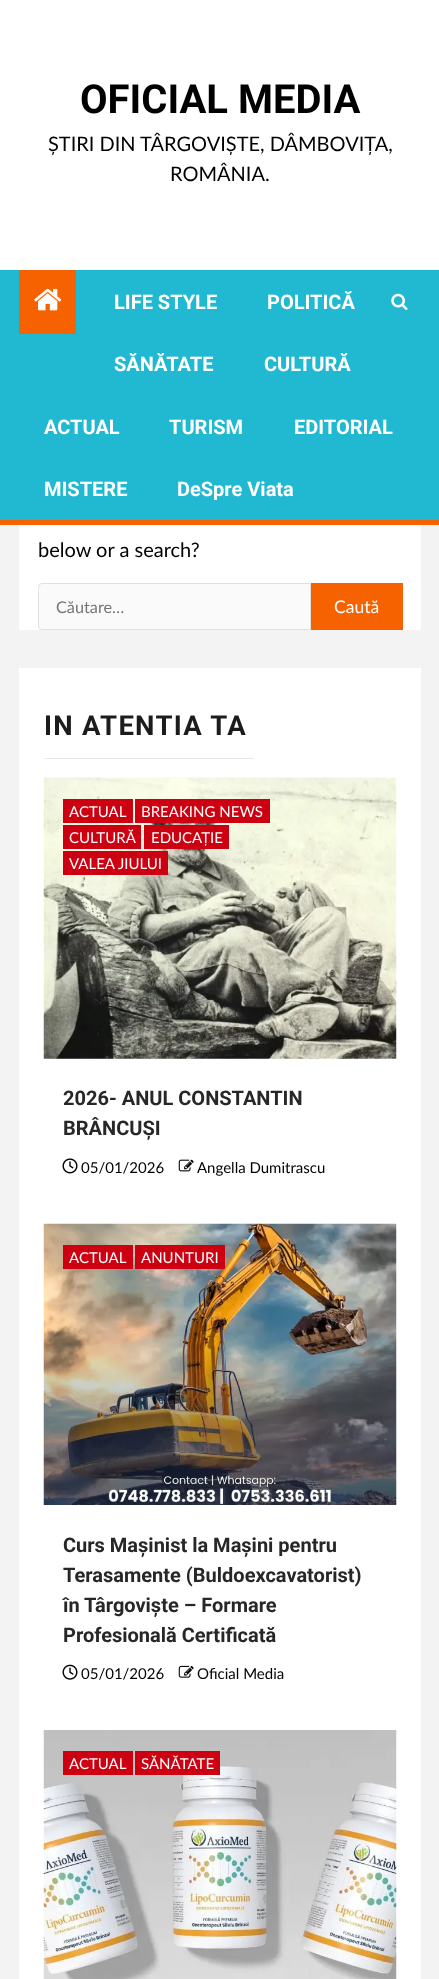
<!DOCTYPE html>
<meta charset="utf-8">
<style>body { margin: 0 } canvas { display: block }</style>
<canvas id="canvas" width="439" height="1979"></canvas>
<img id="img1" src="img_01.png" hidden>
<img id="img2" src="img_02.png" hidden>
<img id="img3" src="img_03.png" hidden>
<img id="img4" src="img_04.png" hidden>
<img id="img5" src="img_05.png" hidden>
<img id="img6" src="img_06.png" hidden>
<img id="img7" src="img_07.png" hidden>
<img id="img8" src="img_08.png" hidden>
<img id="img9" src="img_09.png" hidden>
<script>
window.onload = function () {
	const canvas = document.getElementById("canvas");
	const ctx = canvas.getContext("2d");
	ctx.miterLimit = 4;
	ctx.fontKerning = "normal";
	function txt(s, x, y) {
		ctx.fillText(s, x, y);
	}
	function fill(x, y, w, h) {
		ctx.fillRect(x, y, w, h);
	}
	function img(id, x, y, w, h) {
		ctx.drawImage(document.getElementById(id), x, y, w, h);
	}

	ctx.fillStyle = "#F3F3F3";
	fill(0, 0, 439, 1979);
	ctx.fillStyle = "#FFFFFF";
	fill(0, 0, 439, 270);
	ctx.fillStyle = "#21B9D1";
	fill(0, 270, 439, 250);
	ctx.fillStyle = "#F76200";
	fill(0, 520, 439, 5);
	fill(19, 270, 57, 64);
	img("img1", 34, 288, 28, 23);
	img("img2", 391, 293, 17, 17);
	ctx.fillStyle = "#FFFFFF";
	fill(19, 525, 402, 105);
	ctx.fillStyle = "#FAFAFA";
	ctx.beginPath();
	ctx.roundRect(38.5, 583.5, 272, 46, [3.5, 0, 0, 3.5]);
	ctx.fill();
	ctx.strokeStyle = "#E1E1E1";
	ctx.stroke();
	ctx.fillStyle = "#F76200";
	fill(311, 583, 92, 47);
	ctx.fillStyle = "#FFFFFF";
	fill(19, 668, 402, 1311);
	ctx.fillStyle = "#E8E8E8";
	fill(44, 758, 209, 1);
	img("img3", 43, 777, 354, 282);
	ctx.fillStyle = "#CC0010";
	fill(63, 799, 70, 24);
	fill(135, 799, 135, 24);
	fill(63, 825, 78, 24);
	fill(144, 825, 85, 24);
	fill(63, 851, 105, 24);
	img("img4", 62, 1158, 16, 16);
	img("img5", 178, 1159, 16, 13);
	img("img6", 43, 1223, 354, 282);
	fill(63, 1245, 70, 24);
	fill(135, 1245, 90, 24);
	img("img7", 62, 1664, 16, 16);
	img("img8", 178, 1665, 16, 13);
	img("img9", 43, 1730, 354, 249);
	fill(63, 1751, 70, 24);
	fill(135, 1751, 85, 24);
	ctx.font = "bold 40px Roboto";
	ctx.fillStyle = "#000000";
	txt("OFICIAL MEDIA", 80, 113);
	ctx.font = "20px Lato";
	txt("ȘTIRI DIN TÂRGOVIȘTE, DÂMBOVIȚA,", 48, 151);
	txt("ROMÂNIA.", 170, 181);
	ctx.font = "bold 20px Roboto";
	ctx.fillStyle = "#FFFFFF";
	txt("LIFE STYLE", 114, 309);
	txt("POLITICĂ", 267, 309);
	txt("SĂNĂTATE", 114, 371);
	txt("CULTURĂ", 264, 371);
	txt("ACTUAL", 44, 434);
	txt("TURISM", 169, 434);
	txt("EDITORIAL", 294, 434);
	txt("MISTERE", 44, 496);
	txt("DeSpre Viata", 177, 496);
	ctx.font = "20px Lato";
	ctx.fillStyle = "#000000";
	txt("below or a search?", 38, 557);
	ctx.font = "16.25px Lato";
	ctx.fillStyle = "#757575";
	txt("Căutare…", 56, 613);
	ctx.font = "17.5px Lato";
	ctx.fillStyle = "#FFFFFF";
	txt("Caută", 334, 613);
	ctx.letterSpacing = "1.25px";
	ctx.font = "bold 27.5px Roboto";
	ctx.fillStyle = "#1C1C1C";
	txt("IN ATENTIA TA", 44, 735);
	ctx.letterSpacing = "0px";
	ctx.font = "15px Lato";
	ctx.fillStyle = "#FFFFFF";
	txt("ACTUAL", 69, 817);
	txt("BREAKING NEWS", 141, 817);
	txt("CULTURĂ", 69, 843);
	txt("EDUCAȚIE", 151, 843);
	txt("VALEA JIULUI", 69, 869);
	ctx.font = "bold 20px Roboto";
	ctx.fillStyle = "#272727";
	txt("2026- ANUL CONSTANTIN", 63, 1105);
	txt("BRÂNCUȘI", 63, 1135);
	ctx.font = "15px Lato";
	ctx.fillStyle = "#000000";
	txt("05/01/2026", 81, 1173);
	txt("Angella Dumitrascu", 197, 1173);
	ctx.fillStyle = "#FFFFFF";
	txt("ACTUAL", 69, 1263);
	txt("ANUNTURI", 141, 1263);
	ctx.font = "bold 20px Roboto";
	ctx.fillStyle = "#272727";
	txt("Curs Mașinist la Mașini pentru", 63, 1552);
	txt("Terasamente (Buldoexcavatorist)", 63, 1582);
	txt("în Târgoviște – Formare", 63, 1612);
	txt("Profesională Certificată", 63, 1642);
	ctx.font = "15px Lato";
	ctx.fillStyle = "#000000";
	txt("05/01/2026", 81, 1679);
	txt("Oficial Media", 197, 1679);
	ctx.fillStyle = "#FFFFFF";
	txt("ACTUAL", 69, 1769);
	txt("SĂNĂTATE", 141, 1769);
};
</script>
